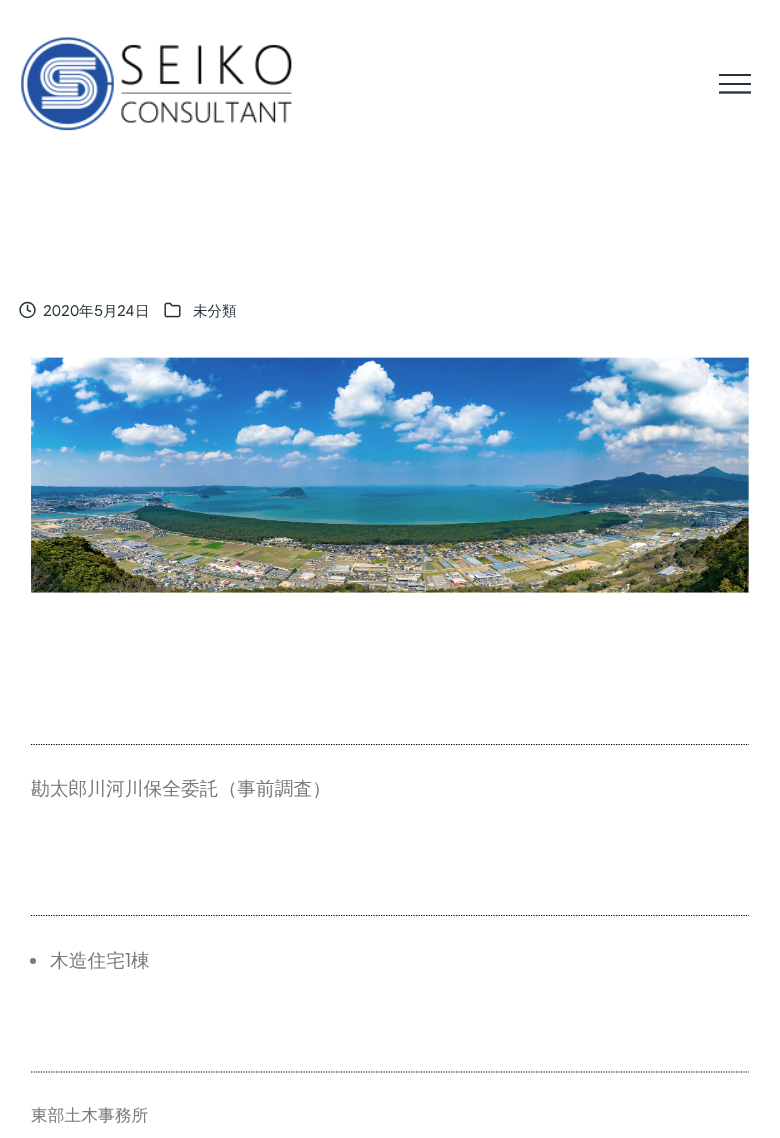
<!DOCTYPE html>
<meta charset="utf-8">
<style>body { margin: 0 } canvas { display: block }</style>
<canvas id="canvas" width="780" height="1138"></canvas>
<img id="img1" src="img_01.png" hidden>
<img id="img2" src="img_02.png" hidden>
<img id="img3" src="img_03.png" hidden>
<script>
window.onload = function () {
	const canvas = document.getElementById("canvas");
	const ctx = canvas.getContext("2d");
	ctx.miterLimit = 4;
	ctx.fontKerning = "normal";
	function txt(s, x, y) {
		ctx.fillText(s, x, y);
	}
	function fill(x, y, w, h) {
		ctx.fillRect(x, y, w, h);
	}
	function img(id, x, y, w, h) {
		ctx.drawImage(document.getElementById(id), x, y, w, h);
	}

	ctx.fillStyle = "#FFFFFF";
	fill(0, 0, 780, 1138);
	img("img1", 21, 37, 271, 94);
	ctx.fillStyle = "#253237";
	fill(719, 74, 32, 2);
	ctx.beginPath();
	ctx.moveTo(719, 92.5);
	ctx.lineTo(751, 92.5);
	ctx.strokeStyle = "#253237";
	ctx.lineWidth = 2.3;
	ctx.stroke();
	fill(719, 83, 32, 2);
	ctx.beginPath();
	ctx.arc(27.5, 310, 7.5, 0, Math.PI * 2);
	ctx.lineWidth = 1.5;
	ctx.stroke();
	ctx.beginPath();
	ctx.moveTo(27.5, 305.5);
	ctx.lineTo(27.5, 310);
	ctx.lineTo(30.5, 311.5);
	ctx.lineCap = "round";
	ctx.lineJoin = "round";
	ctx.stroke();
	img("img2", 164, 302, 17, 16);
	img("img3", 31, 357, 718, 236);
	ctx.beginPath();
	ctx.moveTo(31, 744.5);
	ctx.lineTo(749, 744.5);
	ctx.strokeStyle = "#000000";
	ctx.lineWidth = 1.2;
	ctx.lineCap = "butt";
	ctx.lineJoin = "miter";
	ctx.setLineDash([1.25, 1.25]);
	ctx.stroke();
	ctx.beginPath();
	ctx.moveTo(31, 915.5);
	ctx.lineTo(749, 915.5);
	ctx.stroke();
	ctx.fillStyle = "#7A7A7A";
	ctx.beginPath();
	ctx.arc(33, 961, 3, 0, Math.PI * 2);
	ctx.fill();
	ctx.beginPath();
	ctx.moveTo(31, 1072);
	ctx.lineTo(749, 1072);
	ctx.stroke();
	ctx.font = "14.5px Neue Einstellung";
	ctx.fillStyle = "#253237";
	txt("2020", 43, 316);
	ctx.font = "500 14.5px WenQuanYi Zen Hei";
	txt("年", 79, 316);
	ctx.font = "14.5px Neue Einstellung";
	txt("5", 94, 316);
	ctx.font = "500 14.5px WenQuanYi Zen Hei";
	txt("月", 103, 316);
	ctx.font = "14.5px Neue Einstellung";
	txt("24", 117, 316);
	ctx.font = "500 14.5px WenQuanYi Zen Hei";
	txt("日", 135, 316);
	txt("未分類", 193, 316);
	ctx.font = "500 18.75px WenQuanYi Zen Hei";
	ctx.fillStyle = "#7A7A7A";
	txt("勘太郎川河川保全委託（事前調査）", 31, 795);
	txt("木造住宅", 50, 967);
	ctx.font = "18.75px Neue Einstellung";
	txt("1", 125, 967);
	ctx.font = "500 18.75px WenQuanYi Zen Hei";
	txt("棟", 131, 967);
	ctx.font = "500 16.75px WenQuanYi Zen Hei";
	txt("東部土木事務所", 31, 1121);
};
</script>
